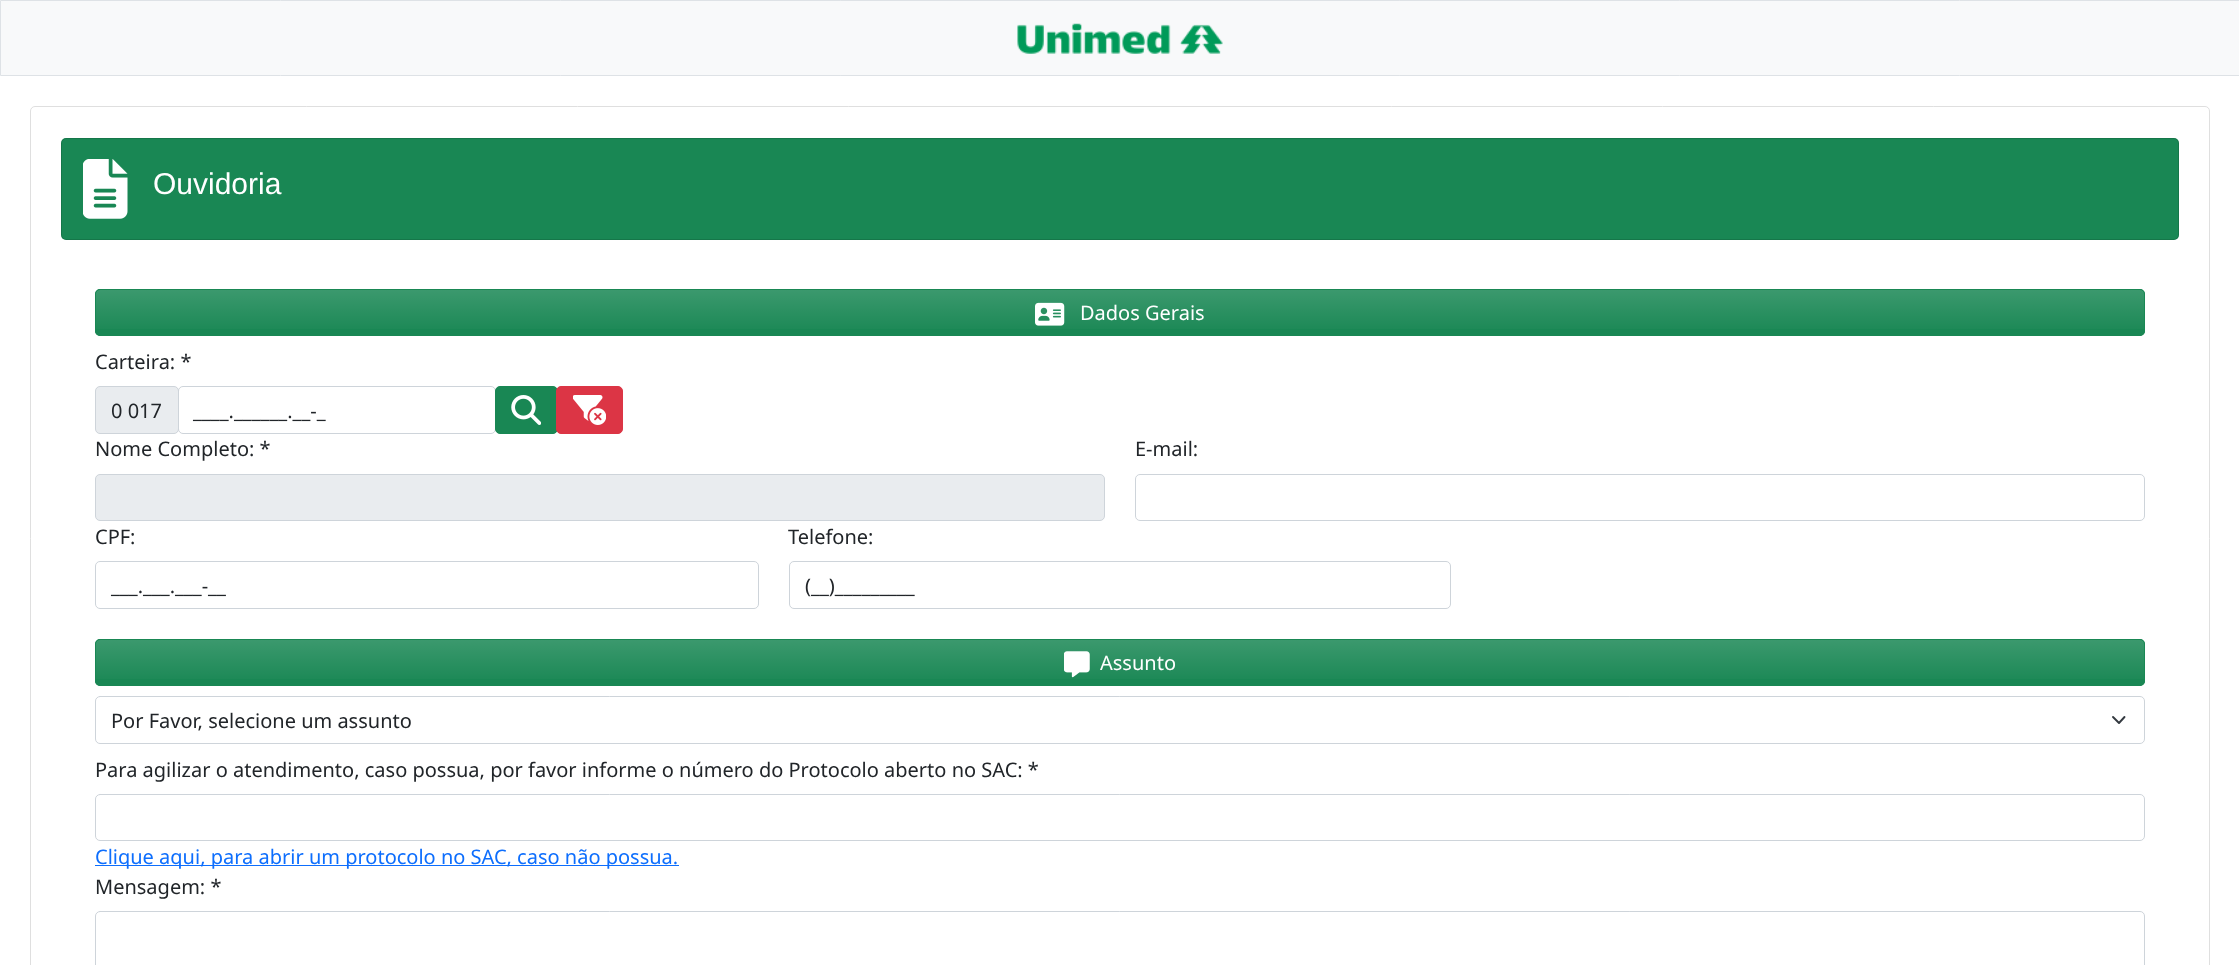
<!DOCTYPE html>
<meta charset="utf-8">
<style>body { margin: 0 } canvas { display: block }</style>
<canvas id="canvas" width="2239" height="965"></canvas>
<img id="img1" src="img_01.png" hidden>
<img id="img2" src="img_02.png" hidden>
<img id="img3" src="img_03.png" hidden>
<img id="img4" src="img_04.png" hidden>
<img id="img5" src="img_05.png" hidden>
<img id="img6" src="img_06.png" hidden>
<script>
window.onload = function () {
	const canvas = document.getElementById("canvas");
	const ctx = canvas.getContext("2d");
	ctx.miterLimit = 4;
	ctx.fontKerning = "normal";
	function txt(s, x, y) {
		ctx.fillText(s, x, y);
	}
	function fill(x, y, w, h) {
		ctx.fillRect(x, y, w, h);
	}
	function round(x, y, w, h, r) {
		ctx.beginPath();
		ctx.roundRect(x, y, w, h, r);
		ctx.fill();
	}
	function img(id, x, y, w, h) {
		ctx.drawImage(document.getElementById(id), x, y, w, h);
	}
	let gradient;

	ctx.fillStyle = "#FFFFFF";
	fill(0, 0, 2239, 965);
	ctx.fillStyle = "#F8F9FA";
	ctx.beginPath();
	ctx.rect(0.5, 0.5, 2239, 75);
	ctx.fill();
	ctx.strokeStyle = "#DEE2E6";
	ctx.stroke();
	img("img1", 1017, 23, 206, 31);
	ctx.beginPath();
	ctx.roundRect(30.5, 106.5, 2179, 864, 4.5);
	ctx.strokeStyle = "#DFDFDF";
	ctx.stroke();
	ctx.fillStyle = "#198754";
	round(61, 138, 2118, 102, 5);
	ctx.beginPath();
	ctx.roundRect(61.5, 138.5, 2117, 101, 4.5);
	ctx.strokeStyle = "rgba(0, 0, 0, 0.12)";
	ctx.stroke();
	img("img2", 83, 159, 45, 60);
	round(95, 289, 2050, 47, 5);
	ctx.save();
	ctx.beginPath();
	ctx.roundRect(95, 289, 2050, 47, 5);
	ctx.clip();
	gradient = ctx.createLinearGradient(1120, 290, 1120, 335);
	gradient.addColorStop(0, "rgba(255, 255, 255, 0.15)");
	gradient.addColorStop(1, "rgba(255, 255, 255, 0)");
	ctx.fillStyle = gradient;
	fill(95, 290, 2050, 39);
	ctx.restore();
	ctx.beginPath();
	ctx.roundRect(95.5, 289.5, 2049, 46, 4.5);
	ctx.strokeStyle = "#198754";
	ctx.stroke();
	img("img3", 1035, 302, 30, 24);
	ctx.fillStyle = "#E9ECEF";
	ctx.beginPath();
	ctx.roundRect(95.5, 386.5, 83, 47, 4.5);
	ctx.fill();
	ctx.strokeStyle = "#CED4DA";
	ctx.stroke();
	ctx.beginPath();
	ctx.roundRect(178.5, 386.5, 317, 47, 4.5);
	ctx.stroke();
	ctx.fillStyle = "#198754";
	ctx.beginPath();
	ctx.roundRect(495.5, 386.5, 62, 47, 4.5);
	ctx.fill();
	ctx.strokeStyle = "#198754";
	ctx.stroke();
	img("img4", 511, 395, 30, 30);
	ctx.fillStyle = "#DC3545";
	ctx.beginPath();
	ctx.roundRect(556.5, 386.5, 66, 47, 4.5);
	ctx.fill();
	ctx.strokeStyle = "#DC3545";
	ctx.stroke();
	img("img5", 573, 395, 33, 30);
	ctx.fillStyle = "#E9ECEF";
	ctx.beginPath();
	ctx.roundRect(95.5, 474.5, 1009, 46, 4.5);
	ctx.fill();
	ctx.strokeStyle = "#CED4DA";
	ctx.stroke();
	ctx.beginPath();
	ctx.roundRect(1135.5, 474.5, 1009, 46, 4.5);
	ctx.stroke();
	ctx.beginPath();
	ctx.roundRect(95.5, 561.5, 663, 47, 4.5);
	ctx.stroke();
	ctx.beginPath();
	ctx.roundRect(789.5, 561.5, 661, 47, 4.5);
	ctx.stroke();
	ctx.fillStyle = "#198754";
	round(95, 639, 2050, 47, 5);
	ctx.save();
	ctx.beginPath();
	ctx.roundRect(95, 639, 2050, 47, 5);
	ctx.clip();
	gradient = ctx.createLinearGradient(1120, 640, 1120, 685);
	gradient.addColorStop(0, "rgba(255, 255, 255, 0.15)");
	gradient.addColorStop(1, "rgba(255, 255, 255, 0)");
	ctx.fillStyle = gradient;
	fill(95, 640, 2050, 39);
	ctx.restore();
	ctx.beginPath();
	ctx.roundRect(95.5, 639.5, 2049, 46, 4.5);
	ctx.strokeStyle = "#198754";
	ctx.stroke();
	img("img6", 1064, 651, 26, 27);
	ctx.beginPath();
	ctx.moveTo(2113, 717);
	ctx.lineTo(2119, 723);
	ctx.lineTo(2124.5, 717);
	ctx.strokeStyle = "#343A40";
	ctx.lineWidth = 1.9;
	ctx.lineCap = "round";
	ctx.lineJoin = "round";
	ctx.stroke();
	ctx.beginPath();
	ctx.roundRect(95.5, 696.5, 2049, 47, 4.5);
	ctx.strokeStyle = "#CED4DA";
	ctx.lineWidth = 1;
	ctx.lineJoin = "miter";
	ctx.stroke();
	ctx.beginPath();
	ctx.roundRect(95.5, 794.5, 2049, 46, 4.5);
	ctx.stroke();
	ctx.fillStyle = "#0D6EFD";
	fill(95, 865, 584, 1);
	ctx.beginPath();
	ctx.roundRect(95.5, 911.5, 2049, 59, 4.5);
	ctx.stroke();
	ctx.font = "30px Liberation Sans";
	ctx.fillStyle = "#FFFFFF";
	txt("Ouvidoria", 153, 194);
	ctx.font = "20px Noto Sans";
	txt("Dados Gerais", 1080, 320);
	ctx.fillStyle = "#212529";
	txt("Carteira: *", 95, 369);
	txt("0 017", 111, 418);
	txt("____.______.__-_", 193, 418);
	txt("Nome Completo: *", 95, 456);
	txt("E-mail:", 1135, 456);
	txt("CPF:", 95, 544);
	txt("___.___.___-__", 111, 593);
	txt("Telefone:", 788, 544);
	txt("(__)_________", 805, 593);
	ctx.fillStyle = "#FFFFFF";
	txt("Assunto", 1100, 670);
	ctx.fillStyle = "#212529";
	txt("Por Favor, selecione um assunto", 111, 728);
	txt("Para agilizar o atendimento, caso possua, por favor informe o número do Protocolo aberto no SAC: *", 95, 777);
	ctx.fillStyle = "#0D6EFD";
	txt("Clique aqui, para abrir um protocolo no SAC, caso não possua.", 95, 864);
	ctx.fillStyle = "#212529";
	txt("Mensagem: *", 95, 894);
};
</script>
